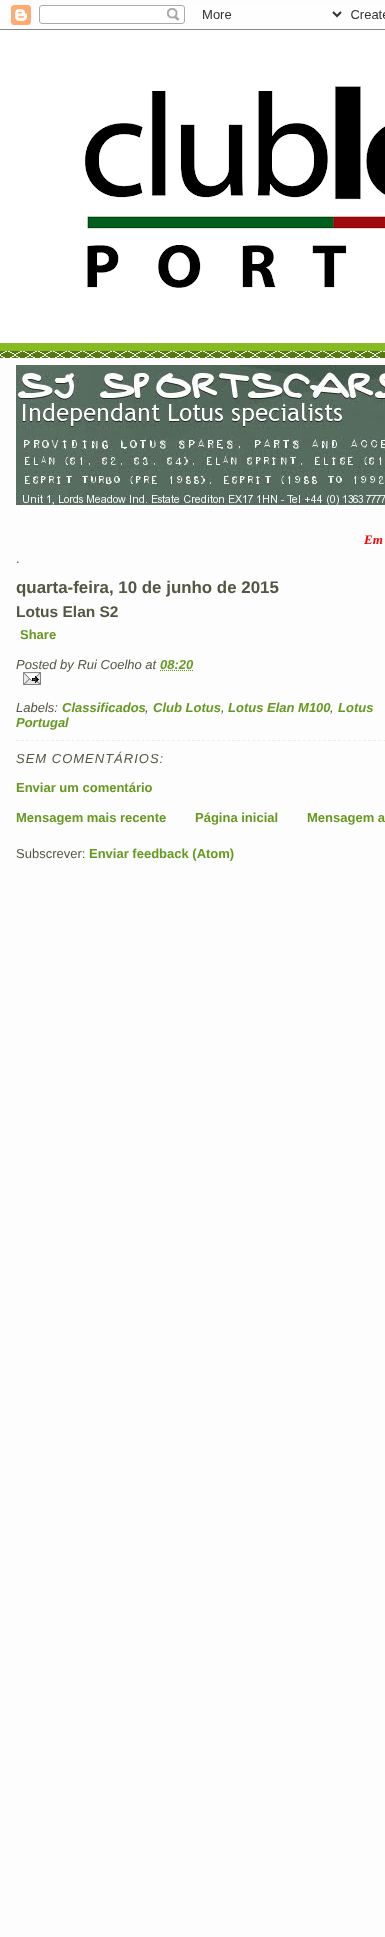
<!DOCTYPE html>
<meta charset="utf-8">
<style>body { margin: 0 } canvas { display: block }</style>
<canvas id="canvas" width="385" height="1937"></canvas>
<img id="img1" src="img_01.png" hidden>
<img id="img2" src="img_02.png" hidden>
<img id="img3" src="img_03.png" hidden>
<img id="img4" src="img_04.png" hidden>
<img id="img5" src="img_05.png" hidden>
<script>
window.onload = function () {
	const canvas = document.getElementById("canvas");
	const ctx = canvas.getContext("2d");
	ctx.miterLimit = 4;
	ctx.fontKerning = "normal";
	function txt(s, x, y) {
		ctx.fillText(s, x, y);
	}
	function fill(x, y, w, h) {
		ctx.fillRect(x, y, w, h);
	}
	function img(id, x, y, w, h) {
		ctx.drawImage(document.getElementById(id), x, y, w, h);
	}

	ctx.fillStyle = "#FDFDFD";
	fill(0, 0, 385, 1937);
	img("img1", 0, 5, 385, 25);
	ctx.fillStyle = "#88BB22";
	fill(0, 343, 385, 8);
	img("img2", 0, 351, 385, 7);
	img("img3", 0, 30, 385, 313);
	img("img4", 16, 365, 369, 140);
	ctx.beginPath();
	ctx.moveTo(160, 670.5);
	ctx.lineTo(193, 670.5);
	ctx.strokeStyle = "#669922";
	ctx.setLineDash([1, 1]);
	ctx.stroke();
	img("img5", 23, 672, 18, 13);
	ctx.beginPath();
	ctx.moveTo(16, 740.5);
	ctx.lineTo(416, 740.5);
	ctx.strokeStyle = "#EEEEDD";
	ctx.setLineDash([3, 2.03]);
	ctx.stroke();
	ctx.font = "italic bold 13px Liberation Serif";
	ctx.fillStyle = "#FF0000";
	txt("Em", 364, 544);
	ctx.font = "13px Liberation Sans";
	ctx.fillStyle = "#555544";
	txt(".", 16, 563);
	ctx.font = "bold 16.9px Liberation Sans";
	txt("quarta-feira, 10 de junho de 2015", 16, 593);
	ctx.font = "bold 15.5px Liberation Sans";
	txt("Lotus Elan S2", 16, 617);
	ctx.font = "bold 13px Liberation Sans";
	ctx.fillStyle = "#669922";
	txt("Share", 20, 639);
	ctx.font = "italic 13px Liberation Sans";
	ctx.fillStyle = "#555544";
	txt("Posted by Rui Coelho at", 16, 669);
	ctx.font = "italic bold 13px Liberation Sans";
	ctx.fillStyle = "#669922";
	txt("08:20", 160, 669);
	ctx.font = "italic 13px Liberation Sans";
	ctx.fillStyle = "#555544";
	txt("Labels:", 16, 712);
	ctx.font = "italic bold 13px Liberation Sans";
	ctx.fillStyle = "#669922";
	txt("Classificados", 62, 712);
	ctx.font = "italic 13px Liberation Sans";
	ctx.fillStyle = "#555544";
	txt(",", 145, 712);
	ctx.font = "italic bold 13px Liberation Sans";
	ctx.fillStyle = "#669922";
	txt("Club Lotus", 153, 712);
	ctx.font = "italic 13px Liberation Sans";
	ctx.fillStyle = "#555544";
	txt(",", 221, 712);
	ctx.font = "italic bold 13px Liberation Sans";
	ctx.fillStyle = "#669922";
	txt("Lotus Elan M100", 228, 712);
	ctx.font = "italic 13px Liberation Sans";
	ctx.fillStyle = "#555544";
	txt(",", 330, 712);
	ctx.font = "italic bold 13px Liberation Sans";
	ctx.fillStyle = "#669922";
	txt("Lotus", 338, 712);
	txt("Portugal", 16, 727);
	ctx.letterSpacing = "1px";
	ctx.font = "italic 13px Liberation Sans";
	ctx.fillStyle = "#555544";
	txt("SEM COMENTÁRIOS:", 16, 763);
	ctx.letterSpacing = "0px";
	ctx.font = "bold 13px Liberation Sans";
	ctx.fillStyle = "#669922";
	txt("Enviar um comentário", 16, 792);
	txt("Mensagem mais recente", 16, 822);
	txt("Página inicial", 195, 822);
	txt("Mensagem a", 307, 822);
	ctx.font = "13px Liberation Sans";
	ctx.fillStyle = "#555544";
	txt("Subscrever:", 16, 858);
	ctx.font = "bold 13px Liberation Sans";
	ctx.fillStyle = "#669922";
	txt("Enviar feedback (Atom)", 89, 858);
};
</script>
